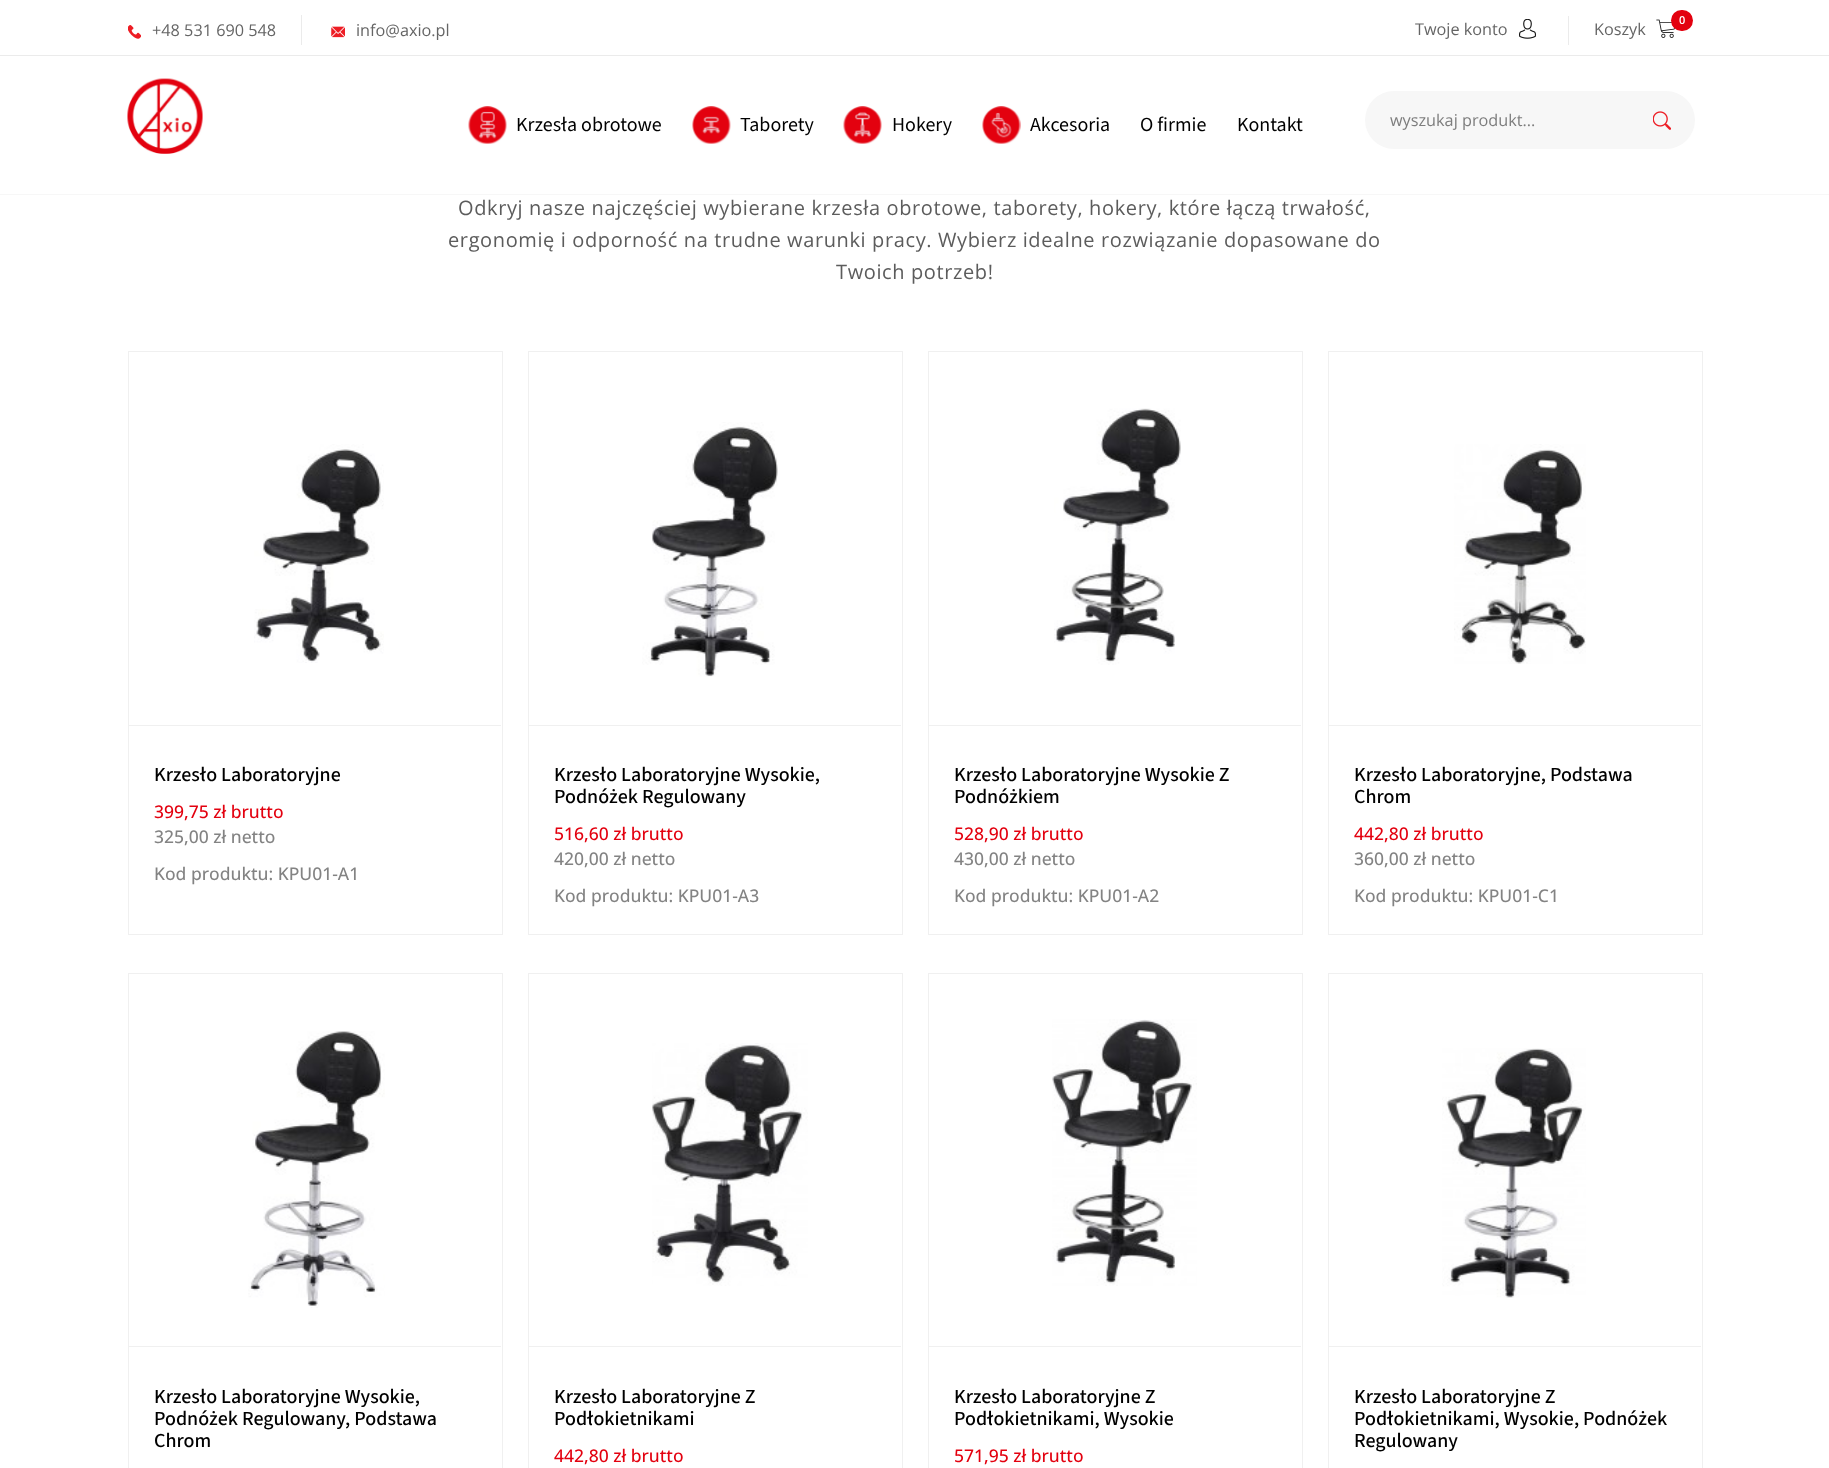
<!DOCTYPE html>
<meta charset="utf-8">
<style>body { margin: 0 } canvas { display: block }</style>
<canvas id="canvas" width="1829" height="1468"></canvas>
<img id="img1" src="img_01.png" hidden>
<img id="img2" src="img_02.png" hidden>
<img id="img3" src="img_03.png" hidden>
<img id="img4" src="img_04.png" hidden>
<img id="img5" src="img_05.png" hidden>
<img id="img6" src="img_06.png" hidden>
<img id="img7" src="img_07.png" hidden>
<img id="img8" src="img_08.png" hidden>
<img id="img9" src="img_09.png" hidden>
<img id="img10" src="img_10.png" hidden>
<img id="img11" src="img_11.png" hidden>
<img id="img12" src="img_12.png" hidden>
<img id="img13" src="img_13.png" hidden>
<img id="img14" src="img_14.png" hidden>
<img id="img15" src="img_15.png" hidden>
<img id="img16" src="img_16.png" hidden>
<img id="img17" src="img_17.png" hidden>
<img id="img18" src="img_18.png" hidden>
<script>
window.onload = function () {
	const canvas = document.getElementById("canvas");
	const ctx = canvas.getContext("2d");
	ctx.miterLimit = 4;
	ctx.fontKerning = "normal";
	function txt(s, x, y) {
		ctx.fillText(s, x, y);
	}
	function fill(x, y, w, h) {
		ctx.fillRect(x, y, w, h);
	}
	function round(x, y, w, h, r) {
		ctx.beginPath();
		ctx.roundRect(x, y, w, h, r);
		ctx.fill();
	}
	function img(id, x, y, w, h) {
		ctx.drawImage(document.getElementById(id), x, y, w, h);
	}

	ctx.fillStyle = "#FFFFFF";
	fill(0, 0, 1829, 1468);
	ctx.fillStyle = "#EBEBEB";
	fill(0, 55, 1829, 1);
	fill(301, 15, 1, 30);
	img("img1", 128, 25, 13, 14);
	img("img2", 331, 26, 14, 12);
	img("img3", 1519, 19, 17, 20);
	fill(1568, 16, 1, 29);
	img("img4", 1656, 19, 19, 19);
	ctx.fillStyle = "#E3010F";
	round(1671, 10, 22, 21, 10.5);
	ctx.fillStyle = "#F7F7F7";
	fill(0, 194, 1829, 1);
	img("img5", 127, 78, 76, 76);
	img("img6", 468, 106, 39, 38);
	img("img7", 692, 106, 39, 38);
	img("img8", 843, 106, 39, 38);
	img("img9", 982, 106, 39, 38);
	round(1365, 91, 330, 58, 29);
	img("img10", 1653, 111, 18, 19);
	ctx.strokeStyle = "#F0F0F0";
	ctx.strokeRect(128.5, 351.5, 374, 583);
	img("img11", 254, 444, 130, 219);
	ctx.fillStyle = "#F0F0F0";
	fill(129, 725, 372, 1);
	ctx.strokeRect(528.5, 351.5, 374, 583);
	img("img12", 642, 422, 136, 255);
	fill(529, 725, 372, 1);
	ctx.strokeRect(928.5, 351.5, 374, 583);
	img("img13", 1054, 408, 127, 257);
	fill(929, 725, 372, 1);
	ctx.strokeRect(1328.5, 351.5, 374, 583);
	img("img14", 1454, 444, 132, 220);
	fill(1329, 725, 372, 1);
	ctx.strokeRect(128.5, 973.5, 374, 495);
	img("img15", 248, 1031, 137, 277);
	fill(129, 1346, 372, 1);
	ctx.strokeRect(528.5, 973.5, 374, 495);
	img("img16", 652, 1043, 156, 243);
	fill(529, 1346, 372, 1);
	ctx.strokeRect(928.5, 973.5, 374, 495);
	img("img17", 1052, 1019, 145, 267);
	fill(929, 1346, 372, 1);
	ctx.strokeRect(1328.5, 973.5, 374, 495);
	img("img18", 1442, 1048, 144, 250);
	fill(1329, 1346, 372, 1);
	ctx.font = "16.25px Open Sans";
	ctx.fillStyle = "#656565";
	txt("+48 531 690 548", 152, 36);
	txt("info@axio.pl", 356, 36);
	txt("Twoje konto", 1415, 35);
	txt("Koszyk", 1594, 35);
	ctx.font = "600 11px Open Sans";
	ctx.fillStyle = "#FFFFFF";
	txt("0", 1679, 24);
	ctx.font = "20px 'Source Sans 3'";
	ctx.fillStyle = "#000000";
	txt("Krzesła obrotowe", 516, 131);
	txt("Taborety", 740, 131);
	txt("Hokery", 892, 131);
	txt("Akcesoria", 1030, 131);
	txt("O firmie", 1140, 131);
	txt("Kontakt", 1237, 131);
	ctx.font = "16.25px Open Sans";
	ctx.fillStyle = "#7D7D7D";
	txt("wyszukaj produkt...", 1390, 126);
	ctx.letterSpacing = "0.62px";
	ctx.font = "20px Open Sans";
	ctx.fillStyle = "#5C5C5C";
	txt("Odkryj nasze najczęściej wybierane krzesła obrotowe, taborety, hokery, które łączą trwałość,", 458, 215);
	txt("ergonomię i odporność na trudne warunki pracy. Wybierz idealne rozwiązanie dopasowane do", 448, 247);
	txt("Twoich potrzeb!", 836, 279);
	ctx.letterSpacing = "0px";
	ctx.font = "500 20px 'Source Sans 3'";
	ctx.fillStyle = "#000000";
	txt("Krzesło Laboratoryjne", 154, 781);
	ctx.font = "500 17.5px Open Sans";
	ctx.fillStyle = "#E3010F";
	txt("399,75 zł brutto", 154, 818);
	ctx.fillStyle = "#838383";
	txt("325,00 zł netto", 154, 843);
	txt("Kod produktu: KPU01-A1", 154, 880);
	ctx.font = "500 20px 'Source Sans 3'";
	ctx.fillStyle = "#000000";
	txt("Krzesło Laboratoryjne Wysokie,", 554, 781);
	txt("Podnóżek Regulowany", 554, 803);
	ctx.font = "500 17.5px Open Sans";
	ctx.fillStyle = "#E3010F";
	txt("516,60 zł brutto", 554, 840);
	ctx.fillStyle = "#838383";
	txt("420,00 zł netto", 554, 865);
	txt("Kod produktu: KPU01-A3", 554, 902);
	ctx.font = "500 20px 'Source Sans 3'";
	ctx.fillStyle = "#000000";
	txt("Krzesło Laboratoryjne Wysokie Z", 954, 781);
	txt("Podnóżkiem", 954, 803);
	ctx.font = "500 17.5px Open Sans";
	ctx.fillStyle = "#E3010F";
	txt("528,90 zł brutto", 954, 840);
	ctx.fillStyle = "#838383";
	txt("430,00 zł netto", 954, 865);
	txt("Kod produktu: KPU01-A2", 954, 902);
	ctx.font = "500 20px 'Source Sans 3'";
	ctx.fillStyle = "#000000";
	txt("Krzesło Laboratoryjne, Podstawa", 1354, 781);
	txt("Chrom", 1354, 803);
	ctx.font = "500 17.5px Open Sans";
	ctx.fillStyle = "#E3010F";
	txt("442,80 zł brutto", 1354, 840);
	ctx.fillStyle = "#838383";
	txt("360,00 zł netto", 1354, 865);
	txt("Kod produktu: KPU01-C1", 1354, 902);
	ctx.font = "500 20px 'Source Sans 3'";
	ctx.fillStyle = "#000000";
	txt("Krzesło Laboratoryjne Wysokie,", 154, 1403);
	txt("Podnóżek Regulowany, Podstawa", 154, 1425);
	txt("Chrom", 154, 1447);
	txt("Krzesło Laboratoryjne Z", 554, 1403);
	txt("Podłokietnikami", 554, 1425);
	ctx.font = "500 17.5px Open Sans";
	ctx.fillStyle = "#E3010F";
	txt("442,80 zł brutto", 554, 1462);
	ctx.font = "500 20px 'Source Sans 3'";
	ctx.fillStyle = "#000000";
	txt("Krzesło Laboratoryjne Z", 954, 1403);
	txt("Podłokietnikami, Wysokie", 954, 1425);
	ctx.font = "500 17.5px Open Sans";
	ctx.fillStyle = "#E3010F";
	txt("571,95 zł brutto", 954, 1462);
	ctx.font = "500 20px 'Source Sans 3'";
	ctx.fillStyle = "#000000";
	txt("Krzesło Laboratoryjne Z", 1354, 1403);
	txt("Podłokietnikami, Wysokie, Podnóżek", 1354, 1425);
	txt("Regulowany", 1354, 1447);
};
</script>
